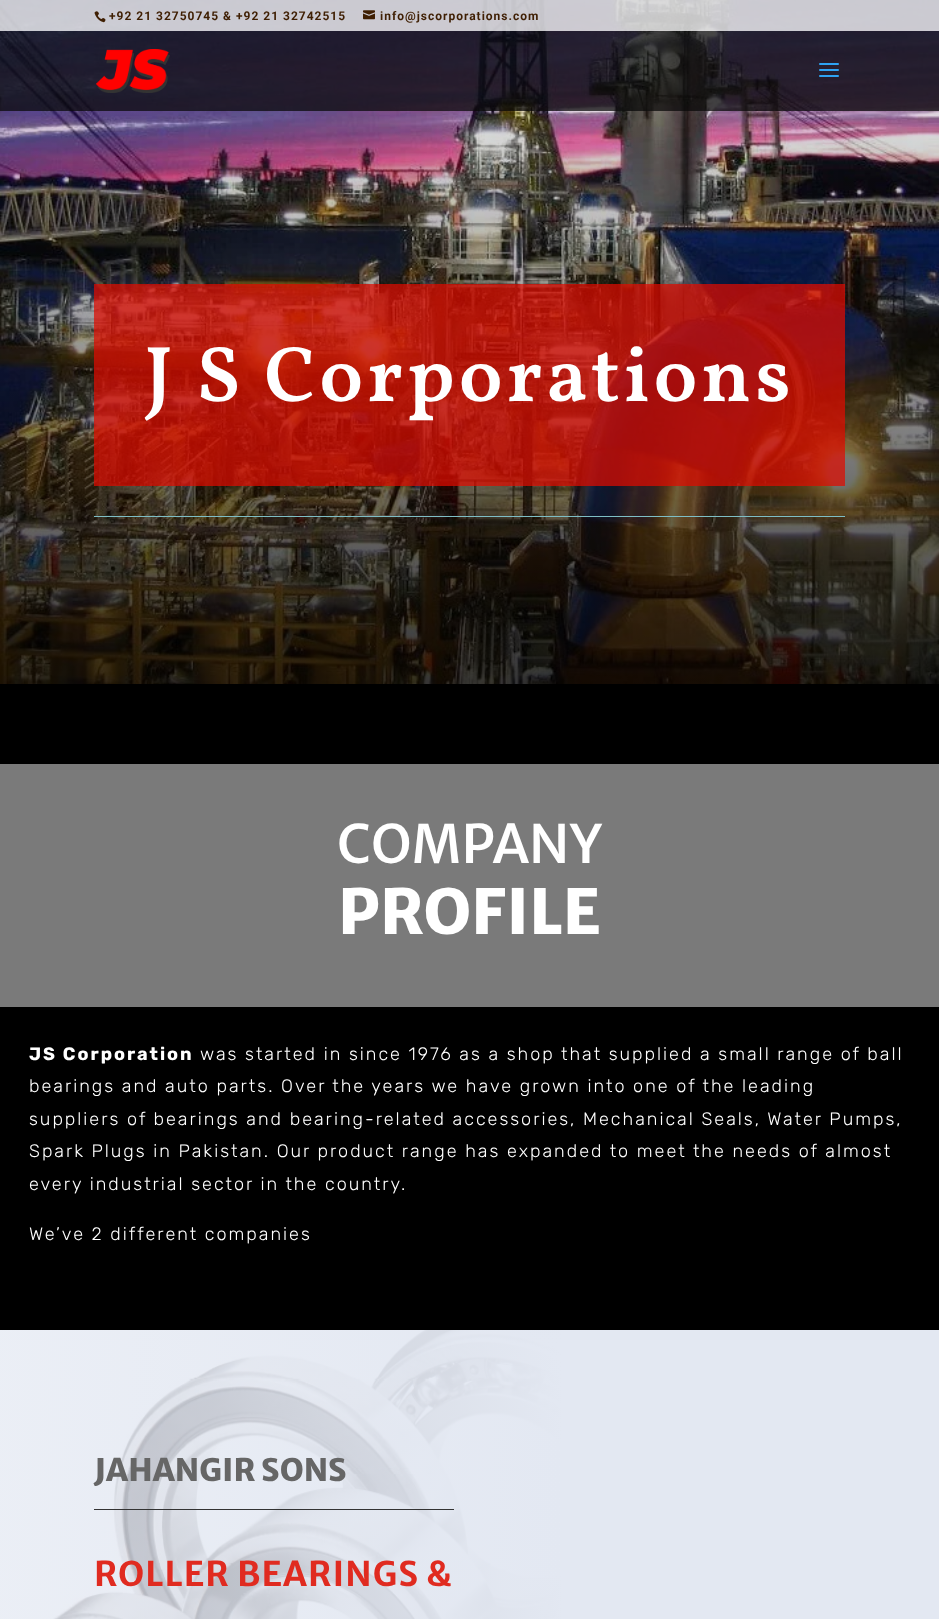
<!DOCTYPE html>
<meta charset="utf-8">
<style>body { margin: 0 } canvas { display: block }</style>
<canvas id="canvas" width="939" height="1619"></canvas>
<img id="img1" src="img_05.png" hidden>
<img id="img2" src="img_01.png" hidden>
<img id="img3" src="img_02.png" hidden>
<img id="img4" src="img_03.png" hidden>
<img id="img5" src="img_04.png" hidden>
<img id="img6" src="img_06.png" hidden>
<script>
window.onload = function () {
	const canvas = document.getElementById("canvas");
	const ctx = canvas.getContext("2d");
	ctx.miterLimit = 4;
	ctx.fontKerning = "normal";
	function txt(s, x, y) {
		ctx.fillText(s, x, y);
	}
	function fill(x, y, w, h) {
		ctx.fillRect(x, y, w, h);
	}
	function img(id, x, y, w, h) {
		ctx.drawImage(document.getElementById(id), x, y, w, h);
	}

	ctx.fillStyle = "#FFFFFF";
	fill(0, 0, 939, 1619);
	img("img1", 0, 0, 939, 684);
	ctx.fillStyle = "rgba(214, 214, 214, 0.91)";
	fill(0, 0, 939, 31);
	img("img2", 94, 11, 12, 12);
	img("img3", 363, 10, 12, 10);
	ctx.fillStyle = "rgba(10, 10, 10, 0.74)";
	fill(0, 31, 939, 80);
	img("img4", 96, 49, 74, 44);
	img("img5", 819, 63, 20, 14);
	ctx.fillStyle = "rgba(224, 11, 0, 0.72)";
	fill(94, 284, 751, 202);
	ctx.fillStyle = "#7EBEC5";
	fill(94, 516, 751, 1);
	ctx.fillStyle = "#000000";
	fill(0, 684, 939, 646);
	ctx.fillStyle = "#7A7A7A";
	fill(0, 764, 939, 243);
	img("img6", 0, 1330, 939, 289);
	ctx.fillStyle = "#333333";
	fill(94, 1509, 360, 1);
	ctx.letterSpacing = "1px";
	ctx.font = "bold 12px Roboto";
	ctx.fillStyle = "#3F1F03";
	txt("+92 21 32750745 & +92 21 32742515", 109, 20);
	txt("info@jscorporations.com", 380, 20);
	ctx.letterSpacing = "4px";
	ctx.font = "600 79px Vollkorn";
	ctx.fillStyle = "#FFFFFF";
	txt("J S Corporations", 145, 401);
	ctx.letterSpacing = "0px";
	ctx.font = "500 53px Merriweather Sans";
	txt("COMPANY", 337, 863);
	ctx.font = "800 62px Merriweather Sans";
	txt("PROFILE", 338, 934);
	ctx.letterSpacing = "2px";
	ctx.font = "bold 18px Rubik";
	txt("JS Corporation", 29, 1060);
	ctx.font = "300 18px Rubik";
	txt("was started in since 1976 as a shop that supplied a small range of ball", 200, 1060);
	txt("bearings and auto parts. Over the years we have grown into one of the leading", 29, 1092);
	txt("suppliers of bearings and bearing-related accessories, Mechanical Seals, Water Pumps,", 29, 1125);
	txt("Spark Plugs in Pakistan. Our product range has expanded to meet the needs of almost", 29, 1157);
	txt("every industrial sector in the country.", 29, 1190);
	txt("We’ve 2 different companies", 29, 1240);
	ctx.letterSpacing = "0px";
	ctx.font = "800 31px Merriweather Sans";
	ctx.fillStyle = "#666666";
	txt("JAHANGIR SONS", 94, 1481);
	ctx.letterSpacing = "1px";
	ctx.font = "bold 34px Merriweather Sans";
	ctx.fillStyle = "#E02B20";
	txt("ROLLER BEARINGS &", 94, 1586);
};
</script>
